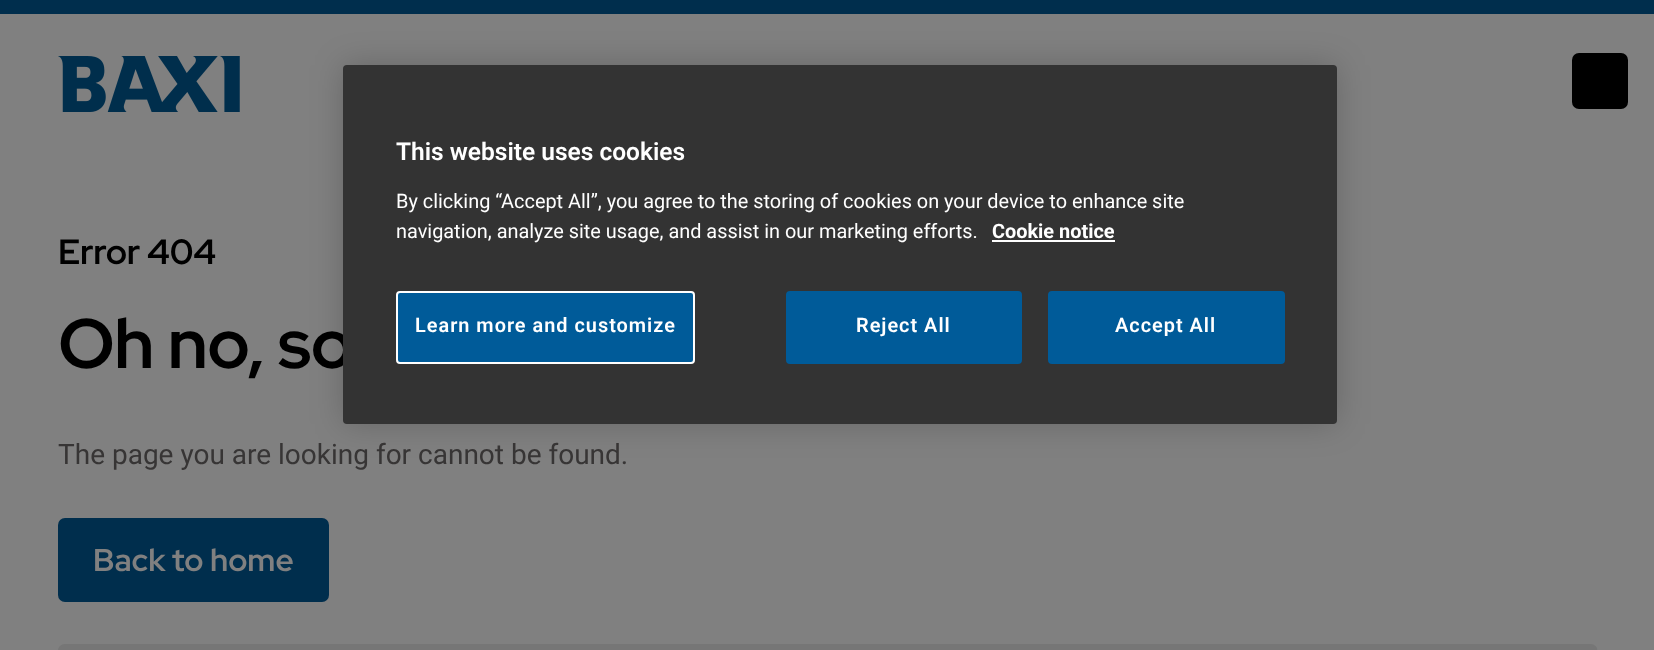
<!DOCTYPE html>
<meta charset="utf-8">
<style>body { margin: 0 } canvas { display: block }</style>
<canvas id="canvas" width="1654" height="650"></canvas>
<img id="img1" src="img_01.png" hidden>
<img id="img2" src="img_02.png" hidden>
<script>
window.onload = function () {
	const canvas = document.getElementById("canvas");
	const ctx = canvas.getContext("2d");
	ctx.miterLimit = 4;
	ctx.fontKerning = "normal";
	function txt(s, x, y) {
		ctx.fillText(s, x, y);
	}
	function fill(x, y, w, h) {
		ctx.fillRect(x, y, w, h);
	}
	function round(x, y, w, h, r) {
		ctx.beginPath();
		ctx.roundRect(x, y, w, h, r);
		ctx.fill();
	}
	function img(id, x, y, w, h) {
		ctx.drawImage(document.getElementById(id), x, y, w, h);
	}

	ctx.fillStyle = "#808080";
	fill(0, 0, 1654, 650);
	ctx.fillStyle = "#002E4D";
	fill(0, 0, 1654, 14);
	img("img1", 58, 56, 182, 56);
	ctx.fillStyle = "#000000";
	round(1572, 53, 56, 56, 7);
	ctx.fillStyle = "#002E4D";
	round(58, 518, 271, 84, 7);
	img("img2", 58, 644, 1540, 6);
	ctx.fillStyle = "rgba(0, 0, 0, 0.2)";
	ctx.filter = "blur(16px)";
	ctx.beginPath();
	ctx.roundRect(343, 65, 994, 359, 4);
	ctx.fill();
	ctx.filter = "none";
	ctx.letterSpacing = "-0.25px";
	ctx.font = "bold 35px Red Hat Display";
	ctx.fillStyle = "#000000";
	txt("Error 404", 58, 264);
	ctx.letterSpacing = "-0.75px";
	ctx.font = "bold 70px Red Hat Display";
	txt("Oh no, so", 58, 368);
	ctx.letterSpacing = "0px";
	ctx.font = "28px Roboto";
	ctx.fillStyle = "#373535";
	txt("The page you are looking for cannot be found.", 58, 464);
	ctx.font = "bold 31.5px Red Hat Display";
	ctx.fillStyle = "#808080";
	txt("Back to home", 93, 571);
	ctx.fillStyle = "#333333";
	round(343, 65, 994, 359, 4);
	ctx.font = "600 24.5px Roboto";
	ctx.fillStyle = "#FFFFFF";
	txt("This website uses cookies", 396, 160);
	ctx.font = "19.9px Roboto";
	txt("By clicking “Accept All”, you agree to the storing of cookies on your device to enhance site", 396, 208);
	txt("navigation, analyze site usage, and assist in our marketing efforts.", 396, 238);
	ctx.font = "bold 19.9px Roboto";
	txt("Cookie notice", 992, 238);
	fill(992, 240, 123, 2);
	ctx.fillStyle = "#005B99";
	ctx.beginPath();
	ctx.roundRect(397, 292, 297, 71, 3);
	ctx.fill();
	ctx.strokeStyle = "#FFFFFF";
	ctx.lineWidth = 2;
	ctx.stroke();
	ctx.letterSpacing = "1px";
	ctx.font = "600 19.9px Roboto";
	ctx.fillStyle = "#FFFFFF";
	txt("Learn more and customize", 415, 332);
	ctx.fillStyle = "#005B99";
	ctx.beginPath();
	ctx.roundRect(787, 292, 234, 71, 3);
	ctx.fill();
	ctx.strokeStyle = "#005B99";
	ctx.stroke();
	ctx.fillStyle = "#FFFFFF";
	txt("Reject All", 856, 332);
	ctx.fillStyle = "#005B99";
	ctx.beginPath();
	ctx.roundRect(1049, 292, 235, 71, 3);
	ctx.fill();
	ctx.stroke();
	ctx.fillStyle = "#FFFFFF";
	txt("Accept All", 1115, 332);
};
</script>
